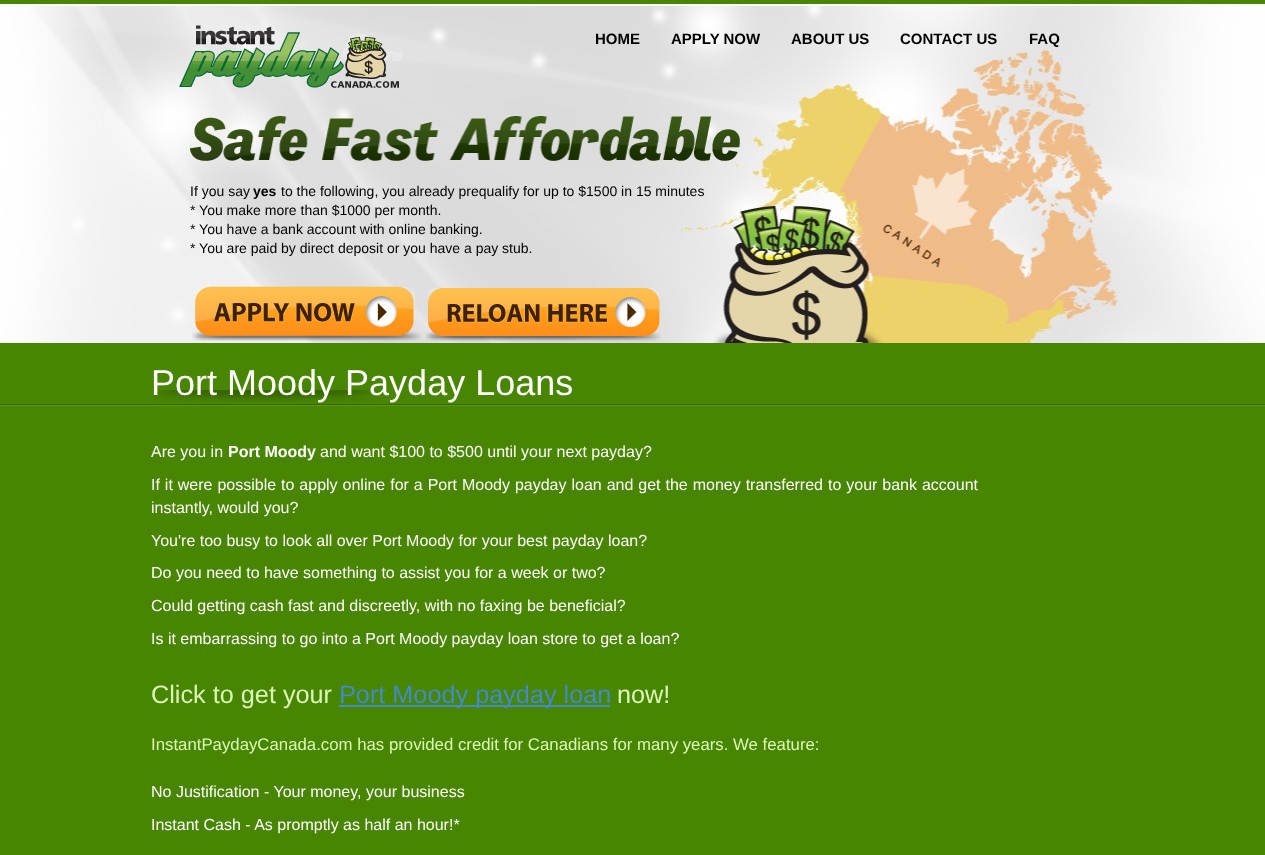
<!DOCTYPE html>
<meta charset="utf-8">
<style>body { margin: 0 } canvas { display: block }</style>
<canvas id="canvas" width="1265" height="855"></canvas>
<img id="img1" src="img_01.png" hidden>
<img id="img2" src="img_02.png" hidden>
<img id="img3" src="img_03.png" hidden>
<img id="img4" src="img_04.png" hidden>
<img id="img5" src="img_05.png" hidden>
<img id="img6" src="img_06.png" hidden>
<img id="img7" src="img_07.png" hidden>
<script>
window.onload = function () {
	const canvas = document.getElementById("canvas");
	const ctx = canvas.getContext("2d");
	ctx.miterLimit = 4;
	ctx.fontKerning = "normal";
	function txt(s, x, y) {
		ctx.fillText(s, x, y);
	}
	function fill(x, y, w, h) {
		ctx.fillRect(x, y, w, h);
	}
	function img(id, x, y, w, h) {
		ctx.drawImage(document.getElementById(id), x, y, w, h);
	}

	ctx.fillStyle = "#FFFFFF";
	fill(0, 0, 1265, 855);
	img("img1", 0, 0, 1265, 343);
	img("img2", 179, 25, 224, 63);
	img("img3", 190, 116, 550, 45);
	img("img4", 192, 286, 229, 55);
	img("img5", 425, 288, 236, 54);
	ctx.fillStyle = "#488500";
	fill(0, 343, 1265, 512);
	img("img6", 0, 404, 1265, 2);
	img("img7", 154, 390, 225, 12);
	ctx.fillStyle = "#428BCA";
	fill(339, 705, 271, 2);
	ctx.font = "bold 15px Liberation Sans";
	ctx.fillStyle = "#000000";
	txt("HOME", 595, 44);
	txt("APPLY NOW", 671, 44);
	txt("ABOUT US", 791, 44);
	txt("CONTACT US", 900, 44);
	txt("FAQ", 1029, 44);
	ctx.font = "14px Liberation Sans";
	txt("If you say", 190, 196);
	ctx.font = "bold 14px Liberation Sans";
	txt("yes", 253, 196);
	ctx.font = "14px Liberation Sans";
	txt("to the following, you already prequalify for up to $1500 in 15 minutes", 281, 196);
	txt("* You make more than $1000 per month.", 190, 215);
	txt("* You have a bank account with online banking.", 190, 234);
	txt("* You are paid by direct deposit or you have a pay stub.", 190, 253);
	ctx.font = "36px Liberation Sans";
	ctx.fillStyle = "#FFFFFF";
	txt("Port Moody Payday Loans", 151, 395);
	ctx.font = "16px Liberation Sans";
	txt("Are you in", 151, 457);
	ctx.font = "bold 16px Liberation Sans";
	txt("Port Moody", 228, 457);
	ctx.font = "16px Liberation Sans";
	txt("and want $100 to $500 until your next payday?", 320, 457);
	ctx.wordSpacing = "0.5px";
	txt("If it were possible to apply online for a Port Moody payday loan and get the money transferred to your bank account", 151, 490);
	ctx.wordSpacing = "0px";
	txt("instantly, would you?", 151, 513);
	txt("You're too busy to look all over Port Moody for your best payday loan?", 151, 546);
	txt("Do you need to have something to assist you for a week or two?", 151, 578);
	txt("Could getting cash fast and discreetly, with no faxing be beneficial?", 151, 611);
	txt("Is it embarrassing to go into a Port Moody payday loan store to get a loan?", 151, 644);
	ctx.font = "25.25px Liberation Sans";
	ctx.fillStyle = "#DBFAB7";
	txt("Click to get your", 151, 703);
	ctx.fillStyle = "#428BCA";
	txt("Port Moody payday loan", 339, 703);
	ctx.fillStyle = "#DBFAB7";
	txt("now!", 617, 703);
	ctx.font = "16.8px Liberation Sans";
	txt("InstantPaydayCanada.com has provided credit for Canadians for many years. We feature:", 151, 750);
	ctx.font = "16px Liberation Sans";
	ctx.fillStyle = "#FFFFFF";
	txt("No Justification - Your money, your business", 151, 797);
	txt("Instant Cash - As promptly as half an hour!*", 151, 830);
};
</script>
